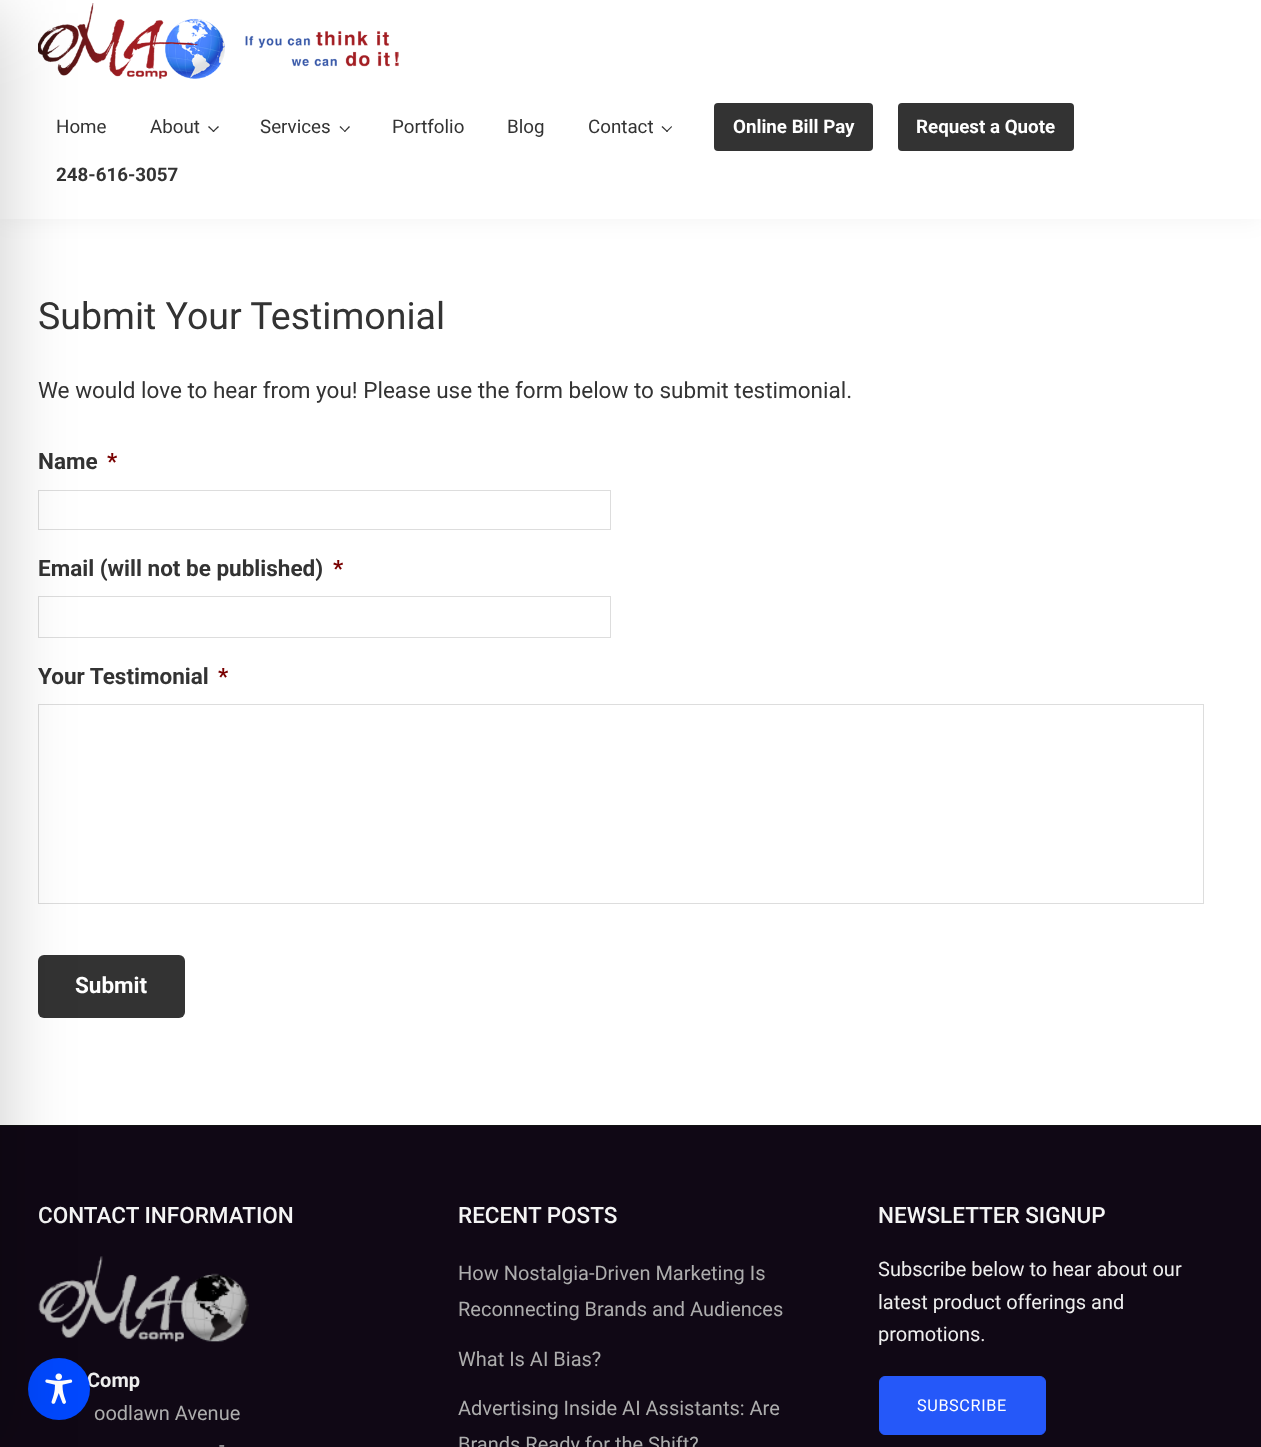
<!DOCTYPE html>
<meta charset="utf-8">
<style>body { margin: 0 } canvas { display: block }</style>
<canvas id="canvas" width="1261" height="1447"></canvas>
<img id="img1" src="img_01.png" hidden>
<img id="img2" src="img_02.png" hidden>
<img id="img3" src="img_03.png" hidden>
<script>
window.onload = function () {
	const canvas = document.getElementById("canvas");
	const ctx = canvas.getContext("2d");
	ctx.miterLimit = 4;
	ctx.fontKerning = "normal";
	function txt(s, x, y) {
		ctx.fillText(s, x, y);
	}
	function fill(x, y, w, h) {
		ctx.fillRect(x, y, w, h);
	}
	function round(x, y, w, h, r) {
		ctx.beginPath();
		ctx.roundRect(x, y, w, h, r);
		ctx.fill();
	}
	function img(id, x, y, w, h) {
		ctx.drawImage(document.getElementById(id), x, y, w, h);
	}

	ctx.fillStyle = "#FFFFFF";
	fill(0, 0, 1261, 1447);
	ctx.fillStyle = "rgba(0, 0, 0, 0.05)";
	ctx.filter = "blur(12.5px)";
	ctx.beginPath();
	ctx.rect(0, 0, 1261, 219);
	ctx.fill();
	ctx.filter = "none";
	ctx.fillStyle = "#FFFFFF";
	fill(0, 0, 1261, 219);
	img("img1", 38, 3, 361, 76);
	ctx.fillStyle = "#333333";
	ctx.beginPath();
	ctx.moveTo(219, 127);
	ctx.lineTo(213.5, 132);
	ctx.lineTo(212.5, 131.5);
	ctx.lineTo(218, 126);
	ctx.closePath();
	ctx.fill();
	ctx.beginPath();
	ctx.moveTo(214.5, 131.5);
	ctx.lineTo(213.5, 132);
	ctx.lineTo(208, 127);
	ctx.lineTo(209, 126);
	ctx.closePath();
	ctx.fill();
	ctx.beginPath();
	ctx.moveTo(350, 127);
	ctx.lineTo(345, 132);
	ctx.lineTo(344, 131.5);
	ctx.lineTo(349, 126);
	ctx.closePath();
	ctx.fill();
	ctx.beginPath();
	ctx.moveTo(345.5, 131.5);
	ctx.lineTo(345, 132);
	ctx.lineTo(339.5, 127);
	ctx.lineTo(340.5, 126);
	ctx.closePath();
	ctx.fill();
	ctx.beginPath();
	ctx.moveTo(672, 127);
	ctx.lineTo(667, 132);
	ctx.lineTo(666, 131.5);
	ctx.lineTo(671.5, 126);
	ctx.closePath();
	ctx.fill();
	ctx.beginPath();
	ctx.moveTo(668, 131.5);
	ctx.lineTo(667, 132);
	ctx.lineTo(661.5, 127);
	ctx.lineTo(662.5, 126);
	ctx.closePath();
	ctx.fill();
	round(714, 103, 159, 48, 4);
	round(898, 103, 176, 48, 4);
	ctx.strokeStyle = "#DDDDDD";
	ctx.strokeRect(38.5, 490.5, 572, 39);
	ctx.strokeRect(38.5, 596.5, 572, 41);
	ctx.strokeRect(38.5, 704.5, 1165, 199);
	round(38, 955, 147, 63, 6);
	ctx.fillStyle = "#100815";
	fill(0, 1126, 1261, 321);
	ctx.fillStyle = "#111111";
	fill(0, 1125, 1261, 1);
	img("img2", 38, 1256, 211, 86);
	ctx.fillStyle = "#2558F9";
	ctx.beginPath();
	ctx.roundRect(879.5, 1376.5, 166, 58, 5.5);
	ctx.fill();
	ctx.strokeStyle = "#2558F9";
	ctx.stroke();
	ctx.font = "18.75px Roboto";
	ctx.fillStyle = "#333333";
	txt("Home", 56, 133);
	txt("About", 150, 133);
	txt("Services", 260, 133);
	txt("Portfolio", 392, 133);
	txt("Blog", 507, 133);
	txt("Contact", 588, 133);
	ctx.font = "bold 18.75px Roboto";
	ctx.fillStyle = "#FFFFFF";
	txt("Online Bill Pay", 733, 133);
	txt("Request a Quote", 916, 133);
	ctx.fillStyle = "#333333";
	txt("248-616-3057", 56, 181);
	ctx.font = "37.5px Roboto";
	txt("Submit Your Testimonial", 38, 329);
	ctx.font = "22.5px Roboto";
	txt("We would love to hear from you! Please use the form below to submit testimonial.", 38, 398);
	ctx.font = "bold 22.5px Roboto";
	txt("Name", 38, 469);
	ctx.fillStyle = "#790000";
	txt("*", 107, 469);
	ctx.fillStyle = "#333333";
	txt("Email (will not be published)", 38, 576);
	ctx.fillStyle = "#790000";
	txt("*", 333, 576);
	ctx.fillStyle = "#333333";
	txt("Your Testimonial", 38, 684);
	ctx.fillStyle = "#790000";
	txt("*", 218, 684);
	ctx.fillStyle = "#FFFFFF";
	txt("Submit", 75, 993);
	ctx.font = "500 22.5px Roboto";
	ctx.fillStyle = "#F5F5F5";
	txt("CONTACT INFORMATION", 38, 1223);
	ctx.font = "bold 20px Roboto";
	ctx.fillStyle = "#EEEEEE";
	txt("Comp", 87, 1387);
	ctx.font = "20px Roboto";
	ctx.fillStyle = "#ADADAD";
	txt("oodlawn Avenue", 94, 1420);
	txt("-", 219, 1452);
	ctx.font = "500 22.5px Roboto";
	ctx.fillStyle = "#F5F5F5";
	txt("RECENT POSTS", 458, 1223);
	ctx.font = "20px Roboto";
	ctx.fillStyle = "#ADADAD";
	txt("How Nostalgia-Driven Marketing Is", 458, 1280);
	txt("Reconnecting Brands and Audiences", 458, 1316);
	txt("What Is AI Bias?", 458, 1366);
	txt("Advertising Inside AI Assistants: Are", 458, 1415);
	txt("Brands Ready for the Shift?", 458, 1451);
	ctx.font = "500 22.5px Roboto";
	ctx.fillStyle = "#F5F5F5";
	txt("NEWSLETTER SIGNUP", 878, 1223);
	ctx.font = "20px Roboto";
	ctx.fillStyle = "#EEEEEE";
	txt("Subscribe below to hear about our", 878, 1276);
	txt("latest product offerings and", 878, 1309);
	txt("promotions.", 878, 1341);
	ctx.letterSpacing = "0.6px";
	ctx.font = "16.25px Roboto";
	ctx.fillStyle = "#FFFFFF";
	txt("SUBSCRIBE", 917, 1411);
	ctx.fillStyle = "#0048FE";
	ctx.beginPath();
	ctx.arc(59, 1389, 31, 0, Math.PI * 2);
	ctx.fill();
	img("img3", 45, 1373, 28, 31);
	ctx.fillStyle = "rgba(0, 0, 0, 0.2)";
	ctx.filter = "blur(37.5px)";
	ctx.beginPath();
	ctx.rect(-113, 13, 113, 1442);
	ctx.fill();
	ctx.filter = "none";
};
</script>
